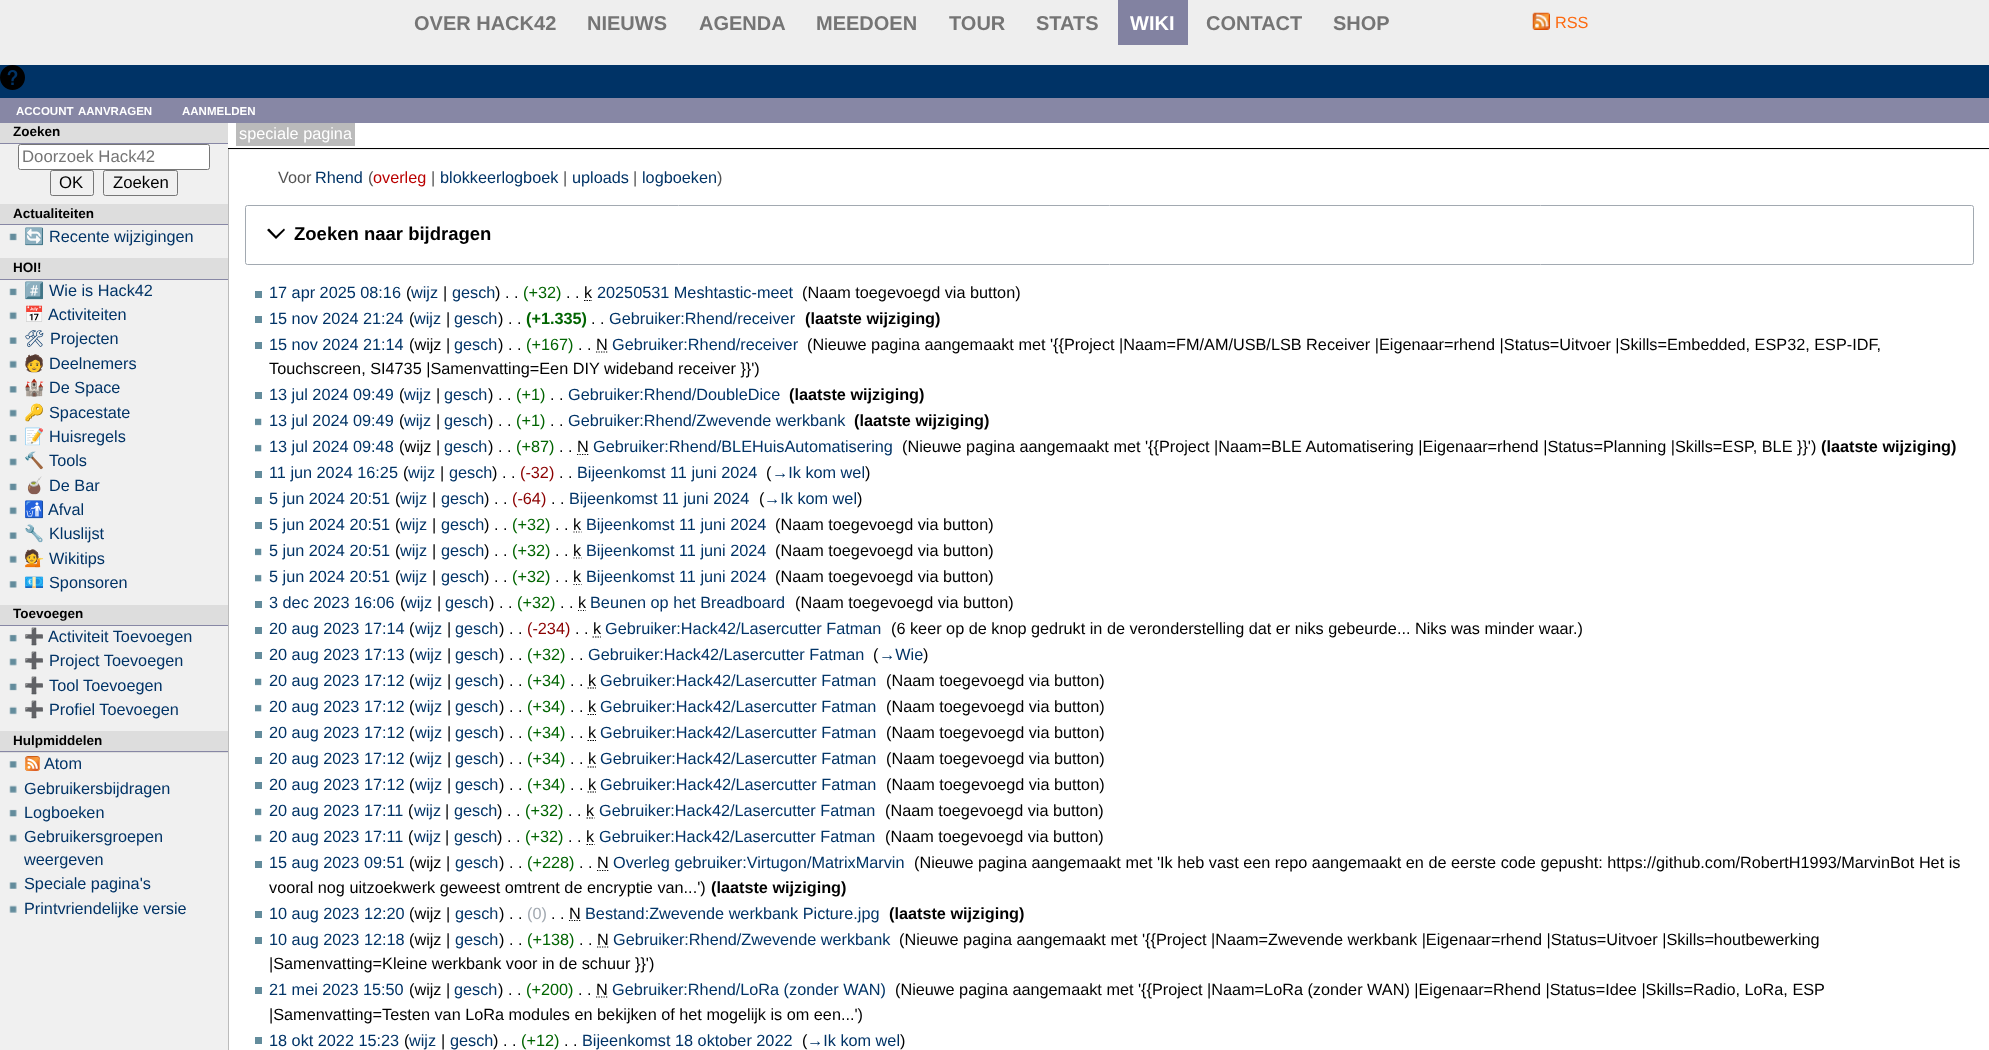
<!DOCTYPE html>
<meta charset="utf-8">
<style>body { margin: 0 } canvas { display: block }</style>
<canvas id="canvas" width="1989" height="1050"></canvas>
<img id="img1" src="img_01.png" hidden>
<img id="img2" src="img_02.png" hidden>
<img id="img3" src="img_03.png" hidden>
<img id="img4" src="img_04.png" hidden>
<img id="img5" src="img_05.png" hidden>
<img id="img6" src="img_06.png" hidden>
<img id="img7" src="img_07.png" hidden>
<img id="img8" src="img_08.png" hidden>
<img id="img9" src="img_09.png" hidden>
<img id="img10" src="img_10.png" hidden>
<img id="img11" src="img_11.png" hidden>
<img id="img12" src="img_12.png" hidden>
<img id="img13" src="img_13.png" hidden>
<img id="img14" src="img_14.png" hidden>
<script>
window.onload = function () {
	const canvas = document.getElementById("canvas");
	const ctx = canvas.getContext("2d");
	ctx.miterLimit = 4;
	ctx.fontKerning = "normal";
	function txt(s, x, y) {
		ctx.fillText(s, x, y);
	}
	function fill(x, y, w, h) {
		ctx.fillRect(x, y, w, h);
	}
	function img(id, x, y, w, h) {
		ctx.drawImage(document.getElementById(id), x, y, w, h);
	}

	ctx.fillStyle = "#FFFFFF";
	fill(0, 0, 1989, 1050);
	ctx.fillStyle = "#EEEEEE";
	fill(0, 0, 1989, 65);
	ctx.fillStyle = "#8282A1";
	fill(1118, 0, 70, 45);
	img("img1", 1532, 12, 18, 18);
	ctx.fillStyle = "#003366";
	fill(0, 65, 1989, 33);
	img("img2", 0, 65, 25, 25);
	ctx.fillStyle = "#8787A5";
	fill(0, 98, 1989, 25);
	ctx.fillStyle = "#F0F0F0";
	fill(0, 144, 228, 906);
	ctx.fillStyle = "#BBBBBB";
	fill(228, 149, 1, 901);
	ctx.fillStyle = "#DDDDDD";
	fill(0, 123, 228, 20);
	ctx.fillStyle = "#8787A5";
	fill(0, 143, 228, 1);
	ctx.fillStyle = "#FFFFFF";
	ctx.beginPath();
	ctx.roundRect(18.5, 144.5, 191, 25, 2);
	ctx.fill();
	ctx.strokeStyle = "#767676";
	ctx.stroke();
	ctx.beginPath();
	ctx.roundRect(50.5, 170.5, 43, 25, 2);
	ctx.stroke();
	ctx.beginPath();
	ctx.roundRect(103.5, 170.5, 74, 25, 2);
	ctx.stroke();
	ctx.fillStyle = "#DDDDDD";
	fill(0, 204, 228, 20);
	ctx.fillStyle = "#8787A5";
	fill(0, 224, 228, 1);
	img("img3", 9, 233, 8, 8);
	ctx.fillStyle = "#DDDDDD";
	fill(0, 258, 228, 21);
	ctx.fillStyle = "#8787A5";
	fill(0, 279, 228, 1);
	img("img3", 9, 288, 8, 8);
	img("img4", 9, 311, 8, 9);
	img("img5", 9, 337, 8, 7);
	img("img6", 9, 360, 8, 8);
	img("img7", 9, 386, 8, 7);
	img("img8", 9, 409, 8, 8);
	img("img9", 9, 434, 8, 8);
	img("img10", 9, 458, 8, 8);
	img("img3", 9, 483, 8, 8);
	img("img4", 9, 506, 8, 9);
	img("img5", 9, 532, 8, 7);
	img("img6", 9, 555, 8, 8);
	img("img7", 9, 581, 8, 7);
	ctx.fillStyle = "#DDDDDD";
	fill(0, 605, 228, 20);
	ctx.fillStyle = "#8787A5";
	fill(0, 625, 228, 1);
	img("img9", 9, 634, 8, 8);
	img("img10", 9, 658, 8, 8);
	img("img3", 9, 683, 8, 8);
	img("img4", 9, 706, 8, 9);
	ctx.fillStyle = "#DDDDDD";
	fill(0, 731, 228, 22);
	ctx.fillStyle = "#8787A5";
	fill(0, 751, 228, 1);
	img("img7", 9, 761, 8, 7);
	img("img11", 25, 756, 15, 15);
	img("img6", 9, 785, 8, 8);
	img("img9", 9, 809, 8, 8);
	img("img8", 9, 834, 8, 8);
	img("img5", 9, 882, 8, 7);
	img("img6", 9, 905, 8, 8);
	ctx.fillStyle = "#000000";
	fill(228, 148, 1761, 1);
	ctx.fillStyle = "#BBBBBB";
	fill(236, 123, 119, 23);
	img("img12", 229, 149, 1760, 1);
	ctx.beginPath();
	ctx.roundRect(245.5, 205.5, 1728, 59, 2);
	ctx.strokeStyle = "#A2A9B1";
	ctx.stroke();
	ctx.fillStyle = "#000000";
	ctx.beginPath();
	ctx.moveTo(284, 228.5);
	ctx.lineTo(276, 236);
	ctx.lineTo(269, 228.5);
	ctx.lineTo(267, 230);
	ctx.lineTo(276, 239);
	ctx.lineTo(285, 230);
	ctx.closePath();
	ctx.fill();
	ctx.fillStyle = "#638C9C";
	fill(255, 291, 7, 7);
	ctx.beginPath();
	ctx.moveTo(584, 300.5);
	ctx.lineTo(585.5, 300.5);
	ctx.moveTo(586.5, 300.5);
	ctx.lineTo(588, 300.5);
	ctx.moveTo(589, 300.5);
	ctx.lineTo(590.5, 300.5);
	ctx.moveTo(591.5, 300.5);
	ctx.lineTo(592, 300.5);
	ctx.strokeStyle = "#000000";
	ctx.lineWidth = 1.2;
	ctx.stroke();
	fill(255, 316, 7, 7);
	fill(255, 342, 7, 7);
	ctx.beginPath();
	ctx.moveTo(596, 352);
	ctx.lineTo(607.5, 352);
	ctx.setLineDash([1.25, 1.25]);
	ctx.stroke();
	fill(255, 392, 7, 7);
	img("img13", 255, 418, 7, 8);
	img("img14", 255, 444, 7, 8);
	ctx.beginPath();
	ctx.moveTo(577, 454.5);
	ctx.lineTo(588.5, 454.5);
	ctx.stroke();
	fill(255, 471, 7, 7);
	fill(255, 497, 7, 7);
	fill(255, 522, 7, 7);
	ctx.beginPath();
	ctx.moveTo(573.5, 532);
	ctx.lineTo(574.5, 532);
	ctx.moveTo(576, 532);
	ctx.lineTo(577, 532);
	ctx.moveTo(578.5, 532);
	ctx.lineTo(579.5, 532);
	ctx.moveTo(581, 532);
	ctx.lineTo(581.5, 532);
	ctx.setLineDash([]);
	ctx.stroke();
	img("img13", 255, 548, 7, 8);
	ctx.beginPath();
	ctx.moveTo(573.5, 558);
	ctx.lineTo(574.5, 558);
	ctx.moveTo(576, 558);
	ctx.lineTo(577, 558);
	ctx.moveTo(578.5, 558);
	ctx.lineTo(579.5, 558);
	ctx.moveTo(581, 558);
	ctx.lineTo(581.5, 558);
	ctx.stroke();
	img("img14", 255, 574, 7, 8);
	ctx.beginPath();
	ctx.moveTo(573.5, 584.5);
	ctx.lineTo(574.5, 584.5);
	ctx.moveTo(576, 584.5);
	ctx.lineTo(577, 584.5);
	ctx.moveTo(578.5, 584.5);
	ctx.lineTo(579.5, 584.5);
	ctx.moveTo(581, 584.5);
	ctx.lineTo(581.5, 584.5);
	ctx.stroke();
	fill(255, 601, 7, 7);
	ctx.beginPath();
	ctx.moveTo(578, 610.5);
	ctx.lineTo(579, 610.5);
	ctx.moveTo(580.5, 610.5);
	ctx.lineTo(581.5, 610.5);
	ctx.moveTo(583, 610.5);
	ctx.lineTo(584, 610.5);
	ctx.moveTo(585.5, 610.5);
	ctx.lineTo(586, 610.5);
	ctx.stroke();
	fill(255, 627, 7, 7);
	ctx.beginPath();
	ctx.moveTo(592.5, 637);
	ctx.lineTo(594, 637);
	ctx.moveTo(595, 637);
	ctx.lineTo(596.5, 637);
	ctx.moveTo(597.5, 637);
	ctx.lineTo(599, 637);
	ctx.moveTo(600, 637);
	ctx.lineTo(601, 637);
	ctx.stroke();
	fill(255, 652, 7, 7);
	img("img13", 255, 678, 7, 8);
	ctx.beginPath();
	ctx.moveTo(587.5, 688);
	ctx.lineTo(589, 688);
	ctx.moveTo(590, 688);
	ctx.lineTo(591.5, 688);
	ctx.moveTo(592.5, 688);
	ctx.lineTo(594, 688);
	ctx.moveTo(595, 688);
	ctx.lineTo(596, 688);
	ctx.stroke();
	img("img14", 255, 704, 7, 8);
	ctx.beginPath();
	ctx.moveTo(587.5, 714.5);
	ctx.lineTo(589, 714.5);
	ctx.moveTo(590, 714.5);
	ctx.lineTo(591.5, 714.5);
	ctx.moveTo(592.5, 714.5);
	ctx.lineTo(594, 714.5);
	ctx.moveTo(595, 714.5);
	ctx.lineTo(596, 714.5);
	ctx.stroke();
	fill(255, 731, 7, 7);
	ctx.beginPath();
	ctx.moveTo(587.5, 740.5);
	ctx.lineTo(589, 740.5);
	ctx.moveTo(590, 740.5);
	ctx.lineTo(591.5, 740.5);
	ctx.moveTo(592.5, 740.5);
	ctx.lineTo(594, 740.5);
	ctx.moveTo(595, 740.5);
	ctx.lineTo(596, 740.5);
	ctx.stroke();
	fill(255, 757, 7, 7);
	ctx.beginPath();
	ctx.moveTo(587.5, 767);
	ctx.lineTo(589, 767);
	ctx.moveTo(590, 767);
	ctx.lineTo(591.5, 767);
	ctx.moveTo(592.5, 767);
	ctx.lineTo(594, 767);
	ctx.moveTo(595, 767);
	ctx.lineTo(596, 767);
	ctx.stroke();
	fill(255, 782, 7, 7);
	ctx.beginPath();
	ctx.moveTo(587.5, 792);
	ctx.lineTo(589, 792);
	ctx.moveTo(590, 792);
	ctx.lineTo(591.5, 792);
	ctx.moveTo(592.5, 792);
	ctx.lineTo(594, 792);
	ctx.moveTo(595, 792);
	ctx.lineTo(596, 792);
	ctx.stroke();
	img("img13", 255, 808, 7, 8);
	ctx.beginPath();
	ctx.moveTo(586.5, 818);
	ctx.lineTo(588, 818);
	ctx.moveTo(589, 818);
	ctx.lineTo(590.5, 818);
	ctx.moveTo(591.5, 818);
	ctx.lineTo(593, 818);
	ctx.moveTo(594, 818);
	ctx.lineTo(594.5, 818);
	ctx.stroke();
	img("img14", 255, 834, 7, 8);
	ctx.beginPath();
	ctx.moveTo(586.5, 844.5);
	ctx.lineTo(588, 844.5);
	ctx.moveTo(589, 844.5);
	ctx.lineTo(590.5, 844.5);
	ctx.moveTo(591.5, 844.5);
	ctx.lineTo(593, 844.5);
	ctx.moveTo(594, 844.5);
	ctx.lineTo(594.5, 844.5);
	ctx.stroke();
	fill(255, 861, 7, 7);
	ctx.beginPath();
	ctx.moveTo(597, 870.5);
	ctx.lineTo(608.5, 870.5);
	ctx.setLineDash([1.25, 1.25]);
	ctx.stroke();
	fill(255, 911, 7, 7);
	ctx.beginPath();
	ctx.moveTo(569, 920.5);
	ctx.lineTo(581, 920.5);
	ctx.stroke();
	fill(255, 937, 7, 7);
	ctx.beginPath();
	ctx.moveTo(597, 947);
	ctx.lineTo(608.5, 947);
	ctx.stroke();
	fill(255, 987, 7, 7);
	ctx.beginPath();
	ctx.moveTo(596, 997);
	ctx.lineTo(607.5, 997);
	ctx.stroke();
	fill(255, 1037, 7, 7);
	ctx.font = "bold 20px Liberation Sans";
	ctx.fillStyle = "#757575";
	txt("OVER HACK42", 414, 30);
	txt("NIEUWS", 587, 30);
	txt("AGENDA", 699, 30);
	txt("MEEDOEN", 816, 30);
	txt("TOUR", 949, 30);
	txt("STATS", 1036, 30);
	ctx.fillStyle = "#FFFFFF";
	txt("WIKI", 1130, 30);
	ctx.fillStyle = "#757575";
	txt("CONTACT", 1206, 30);
	txt("SHOP", 1333, 30);
	ctx.font = "16.25px Liberation Sans";
	ctx.fillStyle = "#FD6A11";
	txt("RSS", 1555, 28);
	ctx.font = "bold 11.5px Liberation Sans";
	ctx.fillStyle = "#FFFFFF";
	txt("ACCOUNT", 16, 115);
	txt("AANVRAGEN", 78, 115);
	txt("AANMELDEN", 182, 115);
	ctx.font = "bold 13.5px Liberation Sans";
	ctx.fillStyle = "#000000";
	txt("Zoeken", 13, 136);
	ctx.font = "16.75px Liberation Sans";
	ctx.fillStyle = "#757575";
	txt("Doorzoek Hack42", 22, 162);
	ctx.fillStyle = "#000000";
	txt("OK", 59, 188);
	txt("Zoeken", 113, 188);
	ctx.font = "bold 13.5px Liberation Sans";
	txt("Actualiteiten", 13, 218);
	ctx.font = "16.25px Noto Color Emoji";
	ctx.fillStyle = "#003366";
	txt("🔄", 24, 242);
	ctx.font = "16.25px Liberation Sans";
	txt("Recente wijzigingen", 49, 242);
	ctx.font = "bold 13.5px Liberation Sans";
	ctx.fillStyle = "#000000";
	txt("HOI!", 13, 272);
	ctx.font = "16.25px Noto Color Emoji";
	ctx.fillStyle = "#003366";
	txt("#️⃣", 24, 296);
	ctx.font = "16.25px Liberation Sans";
	txt("Wie is Hack42", 49, 296);
	ctx.font = "16.25px Noto Color Emoji";
	txt("📅", 24, 320);
	ctx.font = "16.25px Liberation Sans";
	txt("Activiteiten", 48, 320);
	ctx.font = "16.25px Noto Emoji";
	txt("🛠", 24, 344);
	ctx.font = "16.25px Liberation Sans";
	txt("Projecten", 50, 344);
	ctx.font = "16.25px Noto Color Emoji";
	txt("🧑", 24, 369);
	ctx.font = "16.25px Liberation Sans";
	txt("Deelnemers", 49, 369);
	ctx.font = "16.25px Noto Color Emoji";
	txt("🏰", 24, 393);
	ctx.font = "16.25px Liberation Sans";
	txt("De Space", 49, 393);
	ctx.font = "16.25px Noto Color Emoji";
	txt("🔑", 24, 418);
	ctx.font = "16.25px Liberation Sans";
	txt("Spacestate", 49, 418);
	ctx.font = "16.25px Noto Color Emoji";
	txt("📝", 24, 442);
	ctx.font = "16.25px Liberation Sans";
	txt("Huisregels", 49, 442);
	ctx.font = "16.25px Noto Color Emoji";
	txt("🔨", 24, 466);
	ctx.font = "16.25px Liberation Sans";
	txt("Tools", 49, 466);
	ctx.font = "16.25px Noto Color Emoji";
	txt("🧉", 24, 491);
	ctx.font = "16.25px Liberation Sans";
	txt("De Bar", 49, 491);
	ctx.font = "16.25px Noto Color Emoji";
	txt("🚮", 24, 515);
	ctx.font = "16.25px Liberation Sans";
	txt("Afval", 48, 515);
	ctx.font = "16.25px Noto Color Emoji";
	txt("🔧", 24, 539);
	ctx.font = "16.25px Liberation Sans";
	txt("Kluslijst", 49, 539);
	ctx.font = "16.25px Noto Color Emoji";
	txt("💁", 24, 564);
	ctx.font = "16.25px Liberation Sans";
	txt("Wikitips", 49, 564);
	ctx.font = "16.25px Noto Color Emoji";
	txt("💶", 24, 588);
	ctx.font = "16.25px Liberation Sans";
	txt("Sponsoren", 49, 588);
	ctx.font = "bold 13.5px Liberation Sans";
	ctx.fillStyle = "#000000";
	txt("Toevoegen", 13, 618);
	ctx.font = "16.25px Noto Color Emoji";
	ctx.fillStyle = "#003366";
	txt("➕", 24, 642);
	ctx.font = "16.25px Liberation Sans";
	txt("Activiteit Toevoegen", 48, 642);
	ctx.font = "16.25px Noto Color Emoji";
	txt("➕", 24, 666);
	ctx.font = "16.25px Liberation Sans";
	txt("Project Toevoegen", 49, 666);
	ctx.font = "16.25px Noto Color Emoji";
	txt("➕", 24, 691);
	ctx.font = "16.25px Liberation Sans";
	txt("Tool Toevoegen", 49, 691);
	ctx.font = "16.25px Noto Color Emoji";
	txt("➕", 24, 715);
	ctx.font = "16.25px Liberation Sans";
	txt("Profiel Toevoegen", 49, 715);
	ctx.font = "bold 13.5px Liberation Sans";
	ctx.fillStyle = "#000000";
	txt("Hulpmiddelen", 13, 745);
	ctx.font = "16.25px Liberation Sans";
	ctx.fillStyle = "#003366";
	txt("Atom", 44, 769);
	txt("Gebruikersbijdragen", 24, 794);
	txt("Logboeken", 24, 818);
	txt("Gebruikersgroepen", 24, 842);
	txt("weergeven", 24, 865);
	txt("Speciale pagina's", 24, 889);
	txt("Printvriendelijke versie", 24, 914);
	ctx.fillStyle = "#FFFFFF";
	txt("speciale pagina", 239, 139);
	ctx.fillStyle = "#545454";
	txt("Voor", 278, 183);
	ctx.fillStyle = "#003366";
	txt("Rhend", 315, 183);
	ctx.fillStyle = "#545454";
	txt("(", 368, 183);
	ctx.fillStyle = "#BA0000";
	txt("overleg", 373, 183);
	ctx.fillStyle = "#545454";
	txt("|", 431, 183);
	ctx.fillStyle = "#003366";
	txt("blokkeerlogboek", 440, 183);
	ctx.fillStyle = "#545454";
	txt("|", 563, 183);
	ctx.fillStyle = "#003366";
	txt("uploads", 572, 183);
	ctx.fillStyle = "#545454";
	txt("|", 633, 183);
	ctx.fillStyle = "#003366";
	txt("logboeken", 642, 183);
	ctx.fillStyle = "#545454";
	txt(")", 717, 183);
	ctx.font = "bold 18.5px Liberation Sans";
	ctx.fillStyle = "#000000";
	txt("Zoeken naar bijdragen", 294, 240);
	ctx.font = "16.25px Liberation Sans";
	ctx.fillStyle = "#003366";
	txt("17 apr 2025 08:16", 269, 298);
	ctx.fillStyle = "#000000";
	txt("(", 406, 298);
	ctx.fillStyle = "#003366";
	txt("wijz", 411, 298);
	ctx.fillStyle = "#000000";
	txt("|", 443, 298);
	ctx.fillStyle = "#003366";
	txt("gesch", 452, 298);
	ctx.fillStyle = "#000000";
	txt(") . .", 495, 298);
	ctx.fillStyle = "#006400";
	txt("(+32)", 523, 298);
	ctx.fillStyle = "#000000";
	txt(". . k", 566, 298);
	ctx.fillStyle = "#003366";
	txt("20250531 Meshtastic-meet", 597, 298);
	ctx.fillStyle = "#000000";
	txt("(Naam toegevoegd via button)", 802, 298);
	ctx.fillStyle = "#003366";
	txt("15 nov 2024 21:24", 269, 324);
	ctx.fillStyle = "#000000";
	txt("(", 409, 324);
	ctx.fillStyle = "#003366";
	txt("wijz", 414, 324);
	ctx.fillStyle = "#000000";
	txt("|", 446, 324);
	ctx.fillStyle = "#003366";
	txt("gesch", 454, 324);
	ctx.fillStyle = "#000000";
	txt(") . .", 498, 324);
	ctx.font = "bold 16.25px Liberation Sans";
	ctx.fillStyle = "#006400";
	txt("(+1.335)", 526, 324);
	ctx.font = "16.25px Liberation Sans";
	ctx.fillStyle = "#000000";
	txt(". .", 591, 324);
	ctx.fillStyle = "#003366";
	txt("Gebruiker:Rhend/receiver", 609, 324);
	ctx.font = "bold 16.25px Liberation Sans";
	ctx.fillStyle = "#000000";
	txt("(laatste wijziging)", 805, 324);
	ctx.font = "16.25px Liberation Sans";
	ctx.fillStyle = "#003366";
	txt("15 nov 2024 21:14", 269, 350);
	ctx.fillStyle = "#000000";
	txt("(wijz |", 409, 350);
	ctx.fillStyle = "#003366";
	txt("gesch", 454, 350);
	ctx.fillStyle = "#000000";
	txt(") . .", 498, 350);
	ctx.fillStyle = "#006400";
	txt("(+167)", 526, 350);
	ctx.fillStyle = "#000000";
	txt(". . N", 578, 350);
	ctx.fillStyle = "#003366";
	txt("Gebruiker:Rhend/receiver", 612, 350);
	ctx.fillStyle = "#000000";
	txt("(Nieuwe pagina aangemaakt met '{{Project |Naam=FM/AM/USB/LSB Receiver |Eigenaar=rhend |Status=Uitvoer |Skills=Embedded, ESP32, ESP-IDF,", 807, 350);
	txt("Touchscreen, SI4735 |Samenvatting=Een DIY wideband receiver }}')", 269, 374);
	ctx.fillStyle = "#003366";
	txt("13 jul 2024 09:49", 269, 400);
	ctx.fillStyle = "#000000";
	txt("(", 399, 400);
	ctx.fillStyle = "#003366";
	txt("wijz", 404, 400);
	ctx.fillStyle = "#000000";
	txt("|", 436, 400);
	ctx.fillStyle = "#003366";
	txt("gesch", 444, 400);
	ctx.fillStyle = "#000000";
	txt(") . .", 488, 400);
	ctx.fillStyle = "#006400";
	txt("(+1)", 516, 400);
	ctx.fillStyle = "#000000";
	txt(". .", 550, 400);
	ctx.fillStyle = "#003366";
	txt("Gebruiker:Rhend/DoubleDice", 568, 400);
	ctx.font = "bold 16.25px Liberation Sans";
	ctx.fillStyle = "#000000";
	txt("(laatste wijziging)", 789, 400);
	ctx.font = "16.25px Liberation Sans";
	ctx.fillStyle = "#003366";
	txt("13 jul 2024 09:49", 269, 426);
	ctx.fillStyle = "#000000";
	txt("(", 399, 426);
	ctx.fillStyle = "#003366";
	txt("wijz", 404, 426);
	ctx.fillStyle = "#000000";
	txt("|", 436, 426);
	ctx.fillStyle = "#003366";
	txt("gesch", 444, 426);
	ctx.fillStyle = "#000000";
	txt(") . .", 488, 426);
	ctx.fillStyle = "#006400";
	txt("(+1)", 516, 426);
	ctx.fillStyle = "#000000";
	txt(". .", 550, 426);
	ctx.fillStyle = "#003366";
	txt("Gebruiker:Rhend/Zwevende werkbank", 568, 426);
	ctx.font = "bold 16.25px Liberation Sans";
	ctx.fillStyle = "#000000";
	txt("(laatste wijziging)", 854, 426);
	ctx.font = "16.25px Liberation Sans";
	ctx.fillStyle = "#003366";
	txt("13 jul 2024 09:48", 269, 452);
	ctx.fillStyle = "#000000";
	txt("(wijz |", 399, 452);
	ctx.fillStyle = "#003366";
	txt("gesch", 444, 452);
	ctx.fillStyle = "#000000";
	txt(") . .", 488, 452);
	ctx.fillStyle = "#006400";
	txt("(+87)", 516, 452);
	ctx.fillStyle = "#000000";
	txt(". . N", 559, 452);
	ctx.fillStyle = "#003366";
	txt("Gebruiker:Rhend/BLEHuisAutomatisering", 593, 452);
	ctx.fillStyle = "#000000";
	txt("(Nieuwe pagina aangemaakt met '{{Project |Naam=BLE Automatisering |Eigenaar=rhend |Status=Planning |Skills=ESP, BLE }}')", 902, 452);
	ctx.font = "bold 16.25px Liberation Sans";
	txt("(laatste wijziging)", 1821, 452);
	ctx.font = "16.25px Liberation Sans";
	ctx.fillStyle = "#003366";
	txt("11 jun 2024 16:25", 269, 478);
	ctx.fillStyle = "#000000";
	txt("(", 403, 478);
	ctx.fillStyle = "#003366";
	txt("wijz", 408, 478);
	ctx.fillStyle = "#000000";
	txt("|", 440, 478);
	ctx.fillStyle = "#003366";
	txt("gesch", 449, 478);
	ctx.fillStyle = "#000000";
	txt(") . .", 492, 478);
	ctx.fillStyle = "#8B0000";
	txt("(-32)", 520, 478);
	ctx.fillStyle = "#000000";
	txt(". .", 559, 478);
	ctx.fillStyle = "#003366";
	txt("Bijeenkomst 11 juni 2024", 577, 478);
	ctx.fillStyle = "#000000";
	txt("(", 766, 478);
	ctx.fillStyle = "#003366";
	txt("→Ik kom wel", 772, 478);
	ctx.fillStyle = "#000000";
	txt(")", 865, 478);
	ctx.fillStyle = "#003366";
	txt("5 jun 2024 20:51", 269, 504);
	ctx.fillStyle = "#000000";
	txt("(", 395, 504);
	ctx.fillStyle = "#003366";
	txt("wijz", 400, 504);
	ctx.fillStyle = "#000000";
	txt("|", 432, 504);
	ctx.fillStyle = "#003366";
	txt("gesch", 441, 504);
	ctx.fillStyle = "#000000";
	txt(") . .", 484, 504);
	ctx.fillStyle = "#8B0000";
	txt("(-64)", 512, 504);
	ctx.fillStyle = "#000000";
	txt(". .", 551, 504);
	ctx.fillStyle = "#003366";
	txt("Bijeenkomst 11 juni 2024", 569, 504);
	ctx.fillStyle = "#000000";
	txt("(", 759, 504);
	ctx.fillStyle = "#003366";
	txt("→Ik kom wel", 764, 504);
	ctx.fillStyle = "#000000";
	txt(")", 857, 504);
	ctx.fillStyle = "#003366";
	txt("5 jun 2024 20:51", 269, 530);
	ctx.fillStyle = "#000000";
	txt("(", 395, 530);
	ctx.fillStyle = "#003366";
	txt("wijz", 400, 530);
	ctx.fillStyle = "#000000";
	txt("|", 432, 530);
	ctx.fillStyle = "#003366";
	txt("gesch", 441, 530);
	ctx.fillStyle = "#000000";
	txt(") . .", 484, 530);
	ctx.fillStyle = "#006400";
	txt("(+32)", 512, 530);
	ctx.fillStyle = "#000000";
	txt(". . k", 555, 530);
	ctx.fillStyle = "#003366";
	txt("Bijeenkomst 11 juni 2024", 586, 530);
	ctx.fillStyle = "#000000";
	txt("(Naam toegevoegd via button)", 775, 530);
	ctx.fillStyle = "#003366";
	txt("5 jun 2024 20:51", 269, 556);
	ctx.fillStyle = "#000000";
	txt("(", 395, 556);
	ctx.fillStyle = "#003366";
	txt("wijz", 400, 556);
	ctx.fillStyle = "#000000";
	txt("|", 432, 556);
	ctx.fillStyle = "#003366";
	txt("gesch", 441, 556);
	ctx.fillStyle = "#000000";
	txt(") . .", 484, 556);
	ctx.fillStyle = "#006400";
	txt("(+32)", 512, 556);
	ctx.fillStyle = "#000000";
	txt(". . k", 555, 556);
	ctx.fillStyle = "#003366";
	txt("Bijeenkomst 11 juni 2024", 586, 556);
	ctx.fillStyle = "#000000";
	txt("(Naam toegevoegd via button)", 775, 556);
	ctx.fillStyle = "#003366";
	txt("5 jun 2024 20:51", 269, 582);
	ctx.fillStyle = "#000000";
	txt("(", 395, 582);
	ctx.fillStyle = "#003366";
	txt("wijz", 400, 582);
	ctx.fillStyle = "#000000";
	txt("|", 432, 582);
	ctx.fillStyle = "#003366";
	txt("gesch", 441, 582);
	ctx.fillStyle = "#000000";
	txt(") . .", 484, 582);
	ctx.fillStyle = "#006400";
	txt("(+32)", 512, 582);
	ctx.fillStyle = "#000000";
	txt(". . k", 555, 582);
	ctx.fillStyle = "#003366";
	txt("Bijeenkomst 11 juni 2024", 586, 582);
	ctx.fillStyle = "#000000";
	txt("(Naam toegevoegd via button)", 775, 582);
	ctx.fillStyle = "#003366";
	txt("3 dec 2023 16:06", 269, 608);
	ctx.fillStyle = "#000000";
	txt("(", 400, 608);
	ctx.fillStyle = "#003366";
	txt("wijz", 405, 608);
	ctx.fillStyle = "#000000";
	txt("|", 437, 608);
	ctx.fillStyle = "#003366";
	txt("gesch", 445, 608);
	ctx.fillStyle = "#000000";
	txt(") . .", 489, 608);
	ctx.fillStyle = "#006400";
	txt("(+32)", 517, 608);
	ctx.fillStyle = "#000000";
	txt(". . k", 560, 608);
	ctx.fillStyle = "#003366";
	txt("Beunen op het Breadboard", 590, 608);
	ctx.fillStyle = "#000000";
	txt("(Naam toegevoegd via button)", 795, 608);
	ctx.fillStyle = "#003366";
	txt("20 aug 2023 17:14", 269, 634);
	ctx.fillStyle = "#000000";
	txt("(", 409, 634);
	ctx.fillStyle = "#003366";
	txt("wijz", 415, 634);
	ctx.fillStyle = "#000000";
	txt("|", 447, 634);
	ctx.fillStyle = "#003366";
	txt("gesch", 455, 634);
	ctx.fillStyle = "#000000";
	txt(") . .", 499, 634);
	ctx.fillStyle = "#8B0000";
	txt("(-234)", 527, 634);
	ctx.fillStyle = "#000000";
	txt(". . k", 575, 634);
	ctx.fillStyle = "#003366";
	txt("Gebruiker:Hack42/Lasercutter Fatman", 605, 634);
	ctx.fillStyle = "#000000";
	txt("(6 keer op de knop gedrukt in de veronderstelling dat er niks gebeurde... Niks was minder waar.)", 891, 634);
	ctx.fillStyle = "#003366";
	txt("20 aug 2023 17:13", 269, 660);
	ctx.fillStyle = "#000000";
	txt("(", 409, 660);
	ctx.fillStyle = "#003366";
	txt("wijz", 415, 660);
	ctx.fillStyle = "#000000";
	txt("|", 447, 660);
	ctx.fillStyle = "#003366";
	txt("gesch", 455, 660);
	ctx.fillStyle = "#000000";
	txt(") . .", 499, 660);
	ctx.fillStyle = "#006400";
	txt("(+32)", 527, 660);
	ctx.fillStyle = "#000000";
	txt(". .", 570, 660);
	ctx.fillStyle = "#003366";
	txt("Gebruiker:Hack42/Lasercutter Fatman", 588, 660);
	ctx.fillStyle = "#000000";
	txt("(", 873, 660);
	ctx.fillStyle = "#003366";
	txt("→Wie", 879, 660);
	ctx.fillStyle = "#000000";
	txt(")", 923, 660);
	ctx.fillStyle = "#003366";
	txt("20 aug 2023 17:12", 269, 686);
	ctx.fillStyle = "#000000";
	txt("(", 409, 686);
	ctx.fillStyle = "#003366";
	txt("wijz", 415, 686);
	ctx.fillStyle = "#000000";
	txt("|", 447, 686);
	ctx.fillStyle = "#003366";
	txt("gesch", 455, 686);
	ctx.fillStyle = "#000000";
	txt(") . .", 499, 686);
	ctx.fillStyle = "#006400";
	txt("(+34)", 527, 686);
	ctx.fillStyle = "#000000";
	txt(". . k", 570, 686);
	ctx.fillStyle = "#003366";
	txt("Gebruiker:Hack42/Lasercutter Fatman", 600, 686);
	ctx.fillStyle = "#000000";
	txt("(Naam toegevoegd via button)", 886, 686);
	ctx.fillStyle = "#003366";
	txt("20 aug 2023 17:12", 269, 712);
	ctx.fillStyle = "#000000";
	txt("(", 409, 712);
	ctx.fillStyle = "#003366";
	txt("wijz", 415, 712);
	ctx.fillStyle = "#000000";
	txt("|", 447, 712);
	ctx.fillStyle = "#003366";
	txt("gesch", 455, 712);
	ctx.fillStyle = "#000000";
	txt(") . .", 499, 712);
	ctx.fillStyle = "#006400";
	txt("(+34)", 527, 712);
	ctx.fillStyle = "#000000";
	txt(". . k", 570, 712);
	ctx.fillStyle = "#003366";
	txt("Gebruiker:Hack42/Lasercutter Fatman", 600, 712);
	ctx.fillStyle = "#000000";
	txt("(Naam toegevoegd via button)", 886, 712);
	ctx.fillStyle = "#003366";
	txt("20 aug 2023 17:12", 269, 738);
	ctx.fillStyle = "#000000";
	txt("(", 409, 738);
	ctx.fillStyle = "#003366";
	txt("wijz", 415, 738);
	ctx.fillStyle = "#000000";
	txt("|", 447, 738);
	ctx.fillStyle = "#003366";
	txt("gesch", 455, 738);
	ctx.fillStyle = "#000000";
	txt(") . .", 499, 738);
	ctx.fillStyle = "#006400";
	txt("(+34)", 527, 738);
	ctx.fillStyle = "#000000";
	txt(". . k", 570, 738);
	ctx.fillStyle = "#003366";
	txt("Gebruiker:Hack42/Lasercutter Fatman", 600, 738);
	ctx.fillStyle = "#000000";
	txt("(Naam toegevoegd via button)", 886, 738);
	ctx.fillStyle = "#003366";
	txt("20 aug 2023 17:12", 269, 764);
	ctx.fillStyle = "#000000";
	txt("(", 409, 764);
	ctx.fillStyle = "#003366";
	txt("wijz", 415, 764);
	ctx.fillStyle = "#000000";
	txt("|", 447, 764);
	ctx.fillStyle = "#003366";
	txt("gesch", 455, 764);
	ctx.fillStyle = "#000000";
	txt(") . .", 499, 764);
	ctx.fillStyle = "#006400";
	txt("(+34)", 527, 764);
	ctx.fillStyle = "#000000";
	txt(". . k", 570, 764);
	ctx.fillStyle = "#003366";
	txt("Gebruiker:Hack42/Lasercutter Fatman", 600, 764);
	ctx.fillStyle = "#000000";
	txt("(Naam toegevoegd via button)", 886, 764);
	ctx.fillStyle = "#003366";
	txt("20 aug 2023 17:12", 269, 790);
	ctx.fillStyle = "#000000";
	txt("(", 409, 790);
	ctx.fillStyle = "#003366";
	txt("wijz", 415, 790);
	ctx.fillStyle = "#000000";
	txt("|", 447, 790);
	ctx.fillStyle = "#003366";
	txt("gesch", 455, 790);
	ctx.fillStyle = "#000000";
	txt(") . .", 499, 790);
	ctx.fillStyle = "#006400";
	txt("(+34)", 527, 790);
	ctx.fillStyle = "#000000";
	txt(". . k", 570, 790);
	ctx.fillStyle = "#003366";
	txt("Gebruiker:Hack42/Lasercutter Fatman", 600, 790);
	ctx.fillStyle = "#000000";
	txt("(Naam toegevoegd via button)", 886, 790);
	ctx.fillStyle = "#003366";
	txt("20 aug 2023 17:11", 269, 816);
	ctx.fillStyle = "#000000";
	txt("(", 408, 816);
	ctx.fillStyle = "#003366";
	txt("wijz", 414, 816);
	ctx.fillStyle = "#000000";
	txt("|", 445, 816);
	ctx.fillStyle = "#003366";
	txt("gesch", 454, 816);
	ctx.fillStyle = "#000000";
	txt(") . .", 497, 816);
	ctx.fillStyle = "#006400";
	txt("(+32)", 525, 816);
	ctx.fillStyle = "#000000";
	txt(". . k", 568, 816);
	ctx.fillStyle = "#003366";
	txt("Gebruiker:Hack42/Lasercutter Fatman", 599, 816);
	ctx.fillStyle = "#000000";
	txt("(Naam toegevoegd via button)", 885, 816);
	ctx.fillStyle = "#003366";
	txt("20 aug 2023 17:11", 269, 842);
	ctx.fillStyle = "#000000";
	txt("(", 408, 842);
	ctx.fillStyle = "#003366";
	txt("wijz", 414, 842);
	ctx.fillStyle = "#000000";
	txt("|", 445, 842);
	ctx.fillStyle = "#003366";
	txt("gesch", 454, 842);
	ctx.fillStyle = "#000000";
	txt(") . .", 497, 842);
	ctx.fillStyle = "#006400";
	txt("(+32)", 525, 842);
	ctx.fillStyle = "#000000";
	txt(". . k", 568, 842);
	ctx.fillStyle = "#003366";
	txt("Gebruiker:Hack42/Lasercutter Fatman", 599, 842);
	ctx.fillStyle = "#000000";
	txt("(Naam toegevoegd via button)", 885, 842);
	ctx.fillStyle = "#003366";
	txt("15 aug 2023 09:51", 269, 868);
	ctx.fillStyle = "#000000";
	txt("(wijz |", 409, 868);
	ctx.fillStyle = "#003366";
	txt("gesch", 455, 868);
	ctx.fillStyle = "#000000";
	txt(") . .", 499, 868);
	ctx.fillStyle = "#006400";
	txt("(+228)", 527, 868);
	ctx.fillStyle = "#000000";
	txt(". . N", 579, 868);
	ctx.fillStyle = "#003366";
	txt("Overleg gebruiker:Virtugon/MatrixMarvin", 613, 868);
	ctx.fillStyle = "#000000";
	txt("(Nieuwe pagina aangemaakt met 'Ik heb vast een repo aangemaakt en de eerste code gepusht: https://github.com/RobertH1993/MarvinBot Het is", 914, 868);
	txt("vooral nog uitzoekwerk geweest omtrent de encryptie van...')", 269, 893);
	ctx.font = "bold 16.25px Liberation Sans";
	txt("(laatste wijziging)", 711, 893);
	ctx.font = "16.25px Liberation Sans";
	ctx.fillStyle = "#003366";
	txt("10 aug 2023 12:20", 269, 919);
	ctx.fillStyle = "#000000";
	txt("(wijz |", 409, 919);
	ctx.fillStyle = "#003366";
	txt("gesch", 455, 919);
	ctx.fillStyle = "#000000";
	txt(") . .", 499, 919);
	ctx.fillStyle = "#A2A9B1";
	txt("(0)", 527, 919);
	ctx.fillStyle = "#000000";
	txt(". . N", 551, 919);
	ctx.fillStyle = "#003366";
	txt("Bestand:Zwevende werkbank Picture.jpg", 585, 919);
	ctx.font = "bold 16.25px Liberation Sans";
	ctx.fillStyle = "#000000";
	txt("(laatste wijziging)", 889, 919);
	ctx.font = "16.25px Liberation Sans";
	ctx.fillStyle = "#003366";
	txt("10 aug 2023 12:18", 269, 945);
	ctx.fillStyle = "#000000";
	txt("(wijz |", 409, 945);
	ctx.fillStyle = "#003366";
	txt("gesch", 455, 945);
	ctx.fillStyle = "#000000";
	txt(") . .", 499, 945);
	ctx.fillStyle = "#006400";
	txt("(+138)", 527, 945);
	ctx.fillStyle = "#000000";
	txt(". . N", 579, 945);
	ctx.fillStyle = "#003366";
	txt("Gebruiker:Rhend/Zwevende werkbank", 613, 945);
	ctx.fillStyle = "#000000";
	txt("(Nieuwe pagina aangemaakt met '{{Project |Naam=Zwevende werkbank |Eigenaar=rhend |Status=Uitvoer |Skills=houtbewerking", 899, 945);
	txt("|Samenvatting=Kleine werkbank voor in de schuur }}')", 269, 969);
	ctx.fillStyle = "#003366";
	txt("21 mei 2023 15:50", 269, 995);
	ctx.fillStyle = "#000000";
	txt("(wijz |", 409, 995);
	ctx.fillStyle = "#003366";
	txt("gesch", 454, 995);
	ctx.fillStyle = "#000000";
	txt(") . .", 498, 995);
	ctx.fillStyle = "#006400";
	txt("(+200)", 526, 995);
	ctx.fillStyle = "#000000";
	txt(". . N", 578, 995);
	ctx.fillStyle = "#003366";
	txt("Gebruiker:Rhend/LoRa (zonder WAN)", 612, 995);
	ctx.fillStyle = "#000000";
	txt("(Nieuwe pagina aangemaakt met '{{Project |Naam=LoRa (zonder WAN) |Eigenaar=Rhend |Status=Idee |Skills=Radio, LoRa, ESP", 895, 995);
	txt("|Samenvatting=Testen van LoRa modules en bekijken of het mogelijk is om een...')", 269, 1020);
	ctx.fillStyle = "#003366";
	txt("18 okt 2022 15:23", 269, 1046);
	ctx.fillStyle = "#000000";
	txt("(", 404, 1046);
	ctx.fillStyle = "#003366";
	txt("wijz", 409, 1046);
	ctx.fillStyle = "#000000";
	txt("|", 441, 1046);
	ctx.fillStyle = "#003366";
	txt("gesch", 450, 1046);
	ctx.fillStyle = "#000000";
	txt(") . .", 493, 1046);
	ctx.fillStyle = "#006400";
	txt("(+12)", 521, 1046);
	ctx.fillStyle = "#000000";
	txt(". .", 564, 1046);
	ctx.fillStyle = "#003366";
	txt("Bijeenkomst 18 oktober 2022", 582, 1046);
	ctx.fillStyle = "#000000";
	txt("(", 802, 1046);
	ctx.fillStyle = "#003366";
	txt("→Ik kom wel", 807, 1046);
	ctx.fillStyle = "#000000";
	txt(")", 900, 1046);
};
</script>
